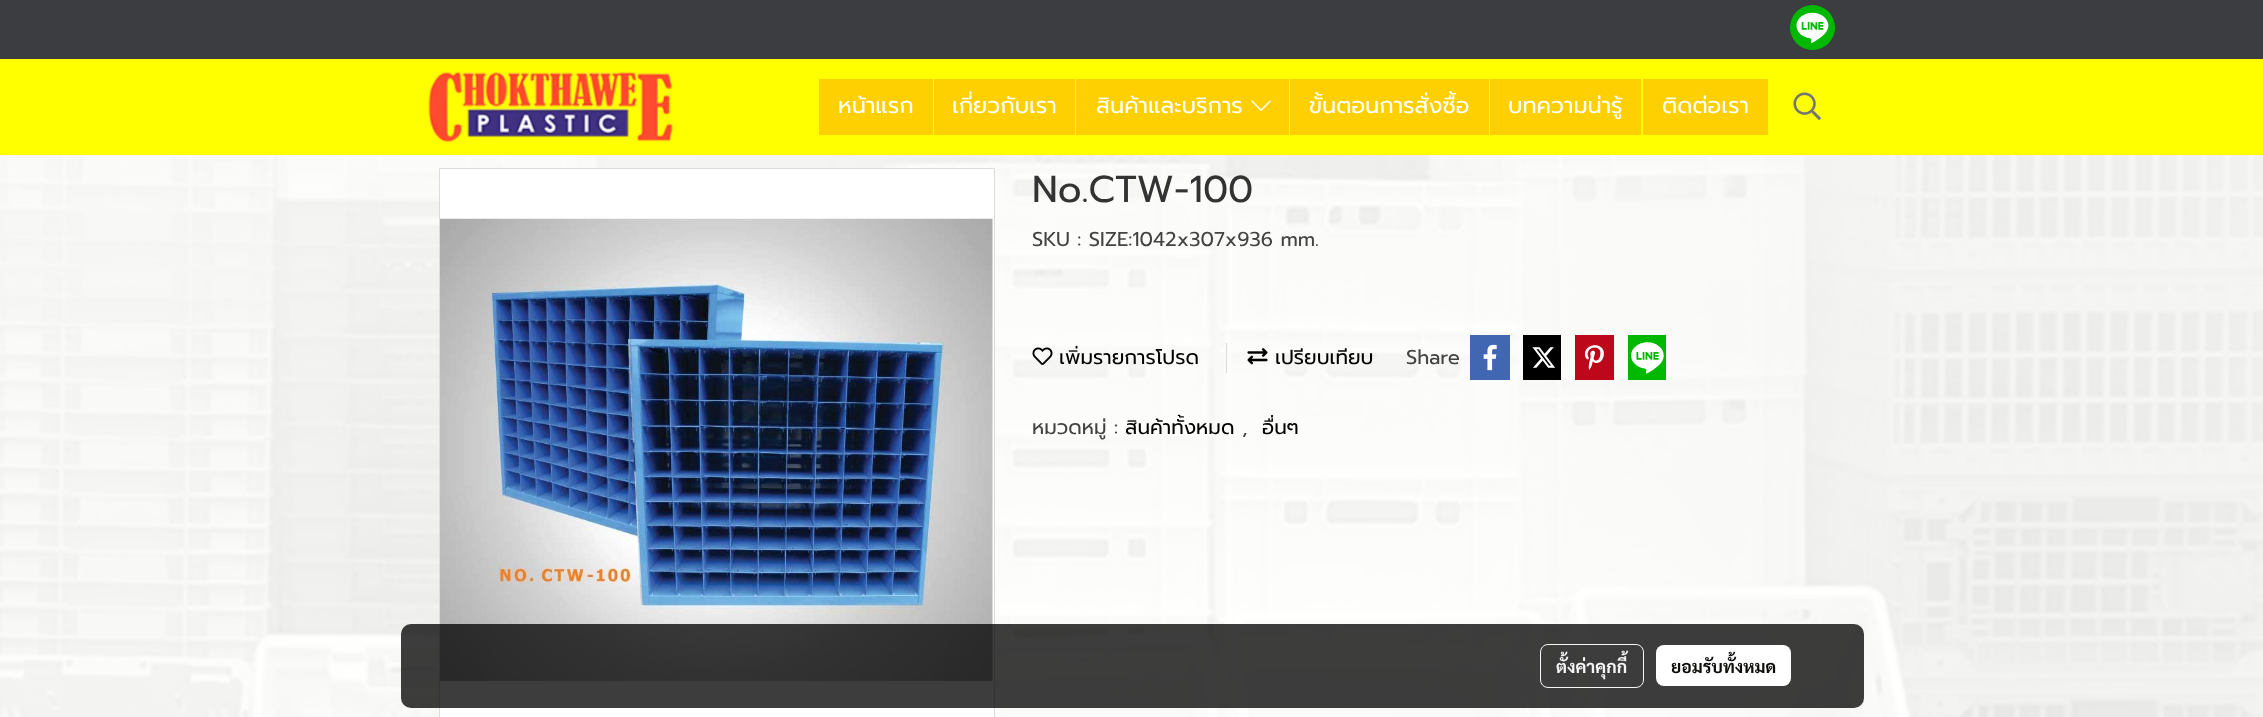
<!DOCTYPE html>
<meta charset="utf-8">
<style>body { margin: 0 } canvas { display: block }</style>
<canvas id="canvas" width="2263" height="717"></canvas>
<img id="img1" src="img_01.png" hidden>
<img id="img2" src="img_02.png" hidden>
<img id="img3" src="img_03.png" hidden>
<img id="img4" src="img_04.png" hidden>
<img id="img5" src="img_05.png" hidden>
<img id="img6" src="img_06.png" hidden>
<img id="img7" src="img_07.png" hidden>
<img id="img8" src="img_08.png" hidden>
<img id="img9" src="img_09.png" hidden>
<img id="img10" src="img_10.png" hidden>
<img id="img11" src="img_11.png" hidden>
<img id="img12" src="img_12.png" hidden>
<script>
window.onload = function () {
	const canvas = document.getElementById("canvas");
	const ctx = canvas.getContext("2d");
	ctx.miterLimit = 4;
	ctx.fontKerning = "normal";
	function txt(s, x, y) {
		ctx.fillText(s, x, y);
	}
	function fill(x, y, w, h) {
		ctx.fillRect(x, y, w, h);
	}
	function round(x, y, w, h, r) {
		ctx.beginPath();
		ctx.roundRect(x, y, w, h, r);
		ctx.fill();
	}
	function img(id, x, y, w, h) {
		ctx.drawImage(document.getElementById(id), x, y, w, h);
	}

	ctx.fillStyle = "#FFFFFF";
	fill(0, 0, 2263, 717);
	img("img1", 0, 155, 2263, 562);
	ctx.fillStyle = "#FFFF00";
	fill(0, 59, 2263, 96);
	ctx.fillStyle = "#3C3D41";
	fill(0, 0, 2263, 59);
	ctx.fillStyle = "#00B800";
	ctx.beginPath();
	ctx.arc(1812.5, 27.5, 22.5, 0, Math.PI * 2);
	ctx.fill();
	img("img2", 1790, 5, 45, 45);
	img("img3", 428, 71, 245, 71);
	ctx.fillStyle = "#FECF01";
	fill(819, 79, 114, 56);
	fill(934, 79, 141, 56);
	fill(1076, 79, 213, 56);
	img("img4", 1251, 100, 20, 11);
	fill(1290, 79, 199, 56);
	fill(1490, 79, 151, 56);
	fill(1643, 79, 125, 56);
	img("img5", 1793, 92, 28, 28);
	ctx.fillStyle = "#FFFFFF";
	ctx.beginPath();
	ctx.rect(439.5, 168.5, 555, 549);
	ctx.fill();
	ctx.strokeStyle = "#DDDDDD";
	ctx.stroke();
	img("img6", 440, 218, 553, 464);
	img("img7", 1032, 347, 21, 18);
	ctx.fillStyle = "#DBDBD9";
	fill(1226, 343, 1, 30);
	img("img8", 1247, 348, 21, 17);
	ctx.fillStyle = "#4267B2";
	fill(1470, 335, 40, 45);
	img("img9", 1483, 344, 14, 27);
	ctx.fillStyle = "#000000";
	fill(1523, 335, 38, 45);
	img("img10", 1532, 347, 24, 21);
	ctx.fillStyle = "#BD081C";
	fill(1575, 335, 39, 45);
	img("img11", 1584, 345, 20, 25);
	ctx.fillStyle = "#00B800";
	fill(1628, 335, 38, 45);
	img("img12", 1631, 342, 33, 32);
	ctx.fillStyle = "rgba(0, 0, 0, 0.76)";
	round(401, 624, 1463, 84, 10);
	ctx.beginPath();
	ctx.roundRect(1540.5, 644.5, 103, 43, 7.5);
	ctx.strokeStyle = "#F5F5F5";
	ctx.stroke();
	ctx.fillStyle = "#FFFFFF";
	round(1656, 645, 135, 41, 8);
	ctx.font = "22.5px Prompt";
	txt("หน้าแรก", 838, 113);
	txt("เกี่ยวกับเรา", 952, 113);
	txt("สินค้าและบริการ", 1096, 113);
	txt("ขั้นตอนการสั่งซื้อ", 1309, 113);
	txt("บทความน่ารู้", 1508, 113);
	txt("ติดต่อเรา", 1662, 113);
	ctx.font = "37.5px Prompt";
	ctx.fillStyle = "#333333";
	txt("No.CTW-100", 1032, 202);
	ctx.font = "20px Prompt";
	ctx.fillStyle = "#434343";
	txt("SKU : SIZE:1042x307x936 mm.", 1032, 246);
	ctx.fillStyle = "#000000";
	txt("เพิ่มรายการโปรด", 1059, 364);
	txt("เปรียบเทียบ", 1275, 364);
	ctx.fillStyle = "#434343";
	txt("Share", 1406, 364);
	txt("หมวดหมู่ :", 1032, 434);
	ctx.fillStyle = "#000000";
	txt("สินค้าทั้งหมด", 1125, 434);
	ctx.fillStyle = "#434343";
	txt(",", 1242, 434);
	ctx.fillStyle = "#000000";
	txt("อื่นๆ", 1262, 434);
	ctx.font = "bold 17.5px Sarabun";
	ctx.fillStyle = "#F5F5F5";
	txt("ตั้งค่าคุกกี้", 1556, 673);
	ctx.fillStyle = "#0D0D0C";
	txt("ยอมรับทั้งหมด", 1671, 673);
};
</script>
